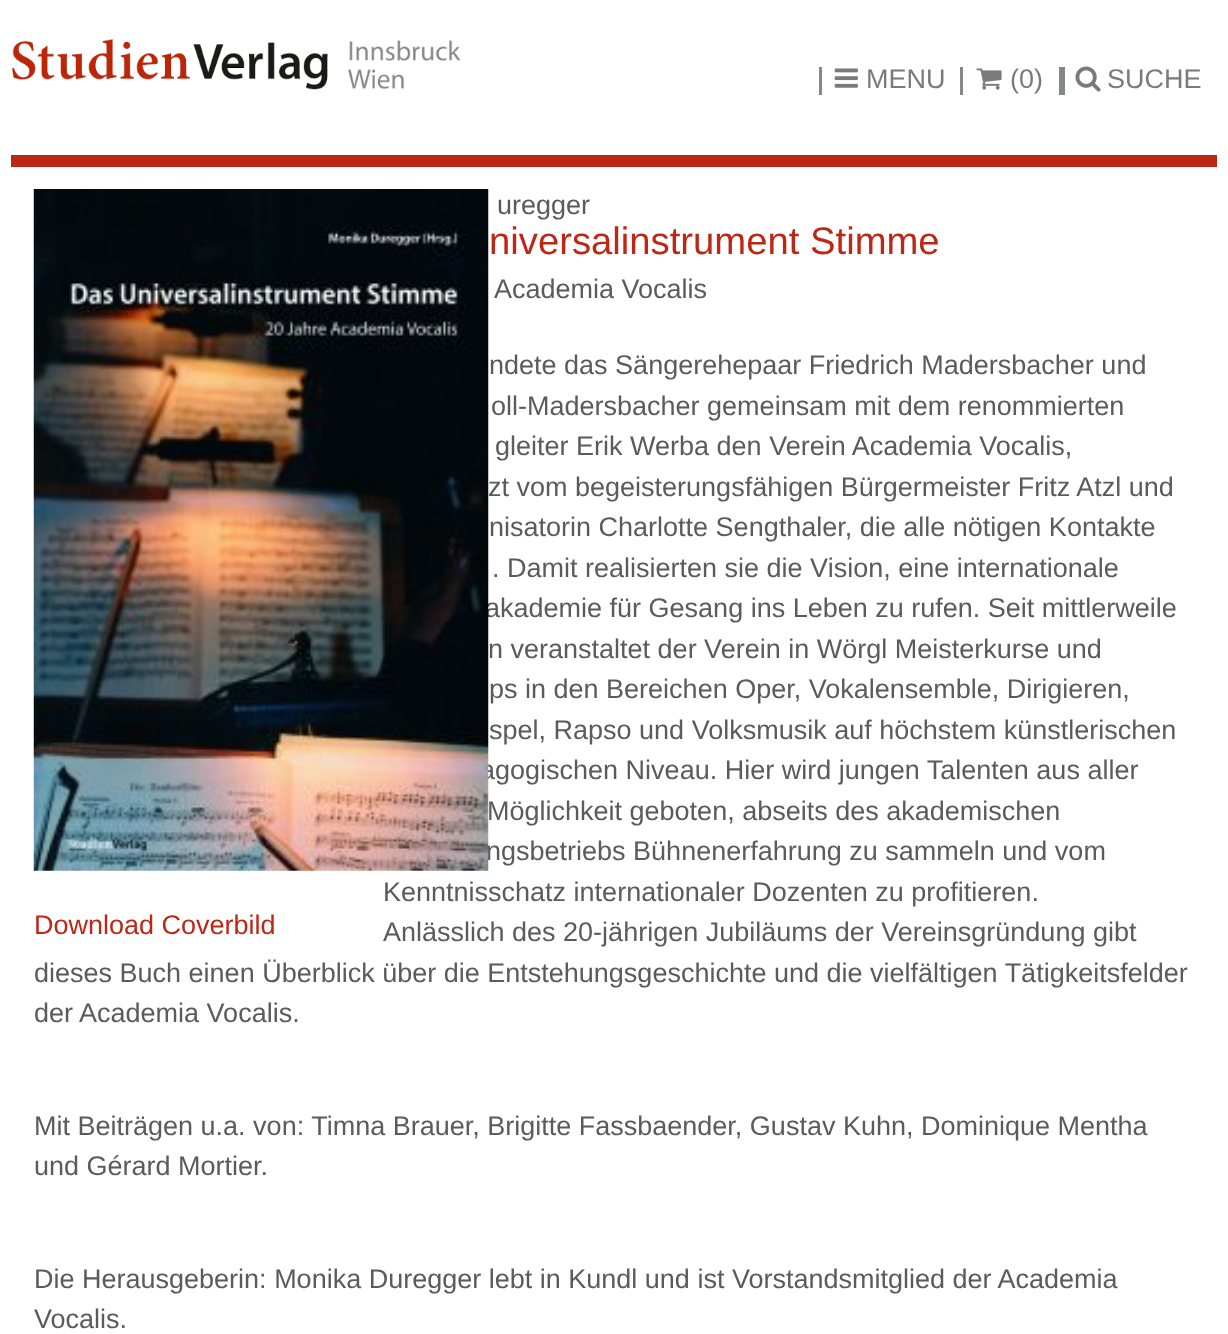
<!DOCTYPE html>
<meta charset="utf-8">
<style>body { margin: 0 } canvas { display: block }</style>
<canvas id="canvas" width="1228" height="1334"></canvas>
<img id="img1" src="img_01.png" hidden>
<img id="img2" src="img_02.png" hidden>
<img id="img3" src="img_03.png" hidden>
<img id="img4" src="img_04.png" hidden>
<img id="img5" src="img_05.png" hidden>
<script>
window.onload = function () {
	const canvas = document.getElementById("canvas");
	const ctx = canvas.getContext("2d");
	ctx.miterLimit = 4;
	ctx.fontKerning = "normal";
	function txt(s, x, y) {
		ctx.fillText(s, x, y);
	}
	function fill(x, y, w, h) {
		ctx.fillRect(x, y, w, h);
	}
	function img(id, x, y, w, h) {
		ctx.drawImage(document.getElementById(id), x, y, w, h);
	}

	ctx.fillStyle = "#FFFFFF";
	fill(0, 0, 1228, 1334);
	ctx.fillStyle = "#BD2716";
	fill(11, 155, 1206, 12);
	img("img1", 12, 39, 449, 51);
	ctx.fillStyle = "#858788";
	fill(819, 67, 3, 28);
	img("img2", 834, 68, 24, 20);
	fill(960, 67, 3, 28);
	img("img3", 976, 68, 26, 22);
	fill(1059, 67, 6, 28);
	img("img4", 1075, 66, 26, 26);
	ctx.font = "27px Liberation Sans";
	ctx.fillStyle = "#7A7A7A";
	txt("MENU", 866, 88);
	txt("(0)", 1010, 88);
	txt("SUCHE", 1107, 88);
	ctx.fillStyle = "#5B5B5B";
	txt("uregger", 497, 214);
	ctx.font = "38.25px Liberation Sans";
	ctx.fillStyle = "#BD2716";
	txt("niversalinstrument Stimme", 489, 254);
	ctx.font = "27px Liberation Sans";
	ctx.fillStyle = "#5B5B5B";
	txt("Academia Vocalis", 494, 298);
	txt("ndete das Sängerehepaar Friedrich Madersbacher und", 489, 374);
	txt("oll-Madersbacher gemeinsam mit dem renommierten", 491, 415);
	txt("gleiter Erik Werba den Verein Academia Vocalis,", 495, 455);
	txt("zt vom begeisterungsfähigen Bürgermeister Fritz Atzl und", 488, 496);
	txt("nisatorin Charlotte Sengthaler, die alle nötigen Kontakte", 489, 536);
	txt(". Damit realisierten sie die Vision, eine internationale", 492, 577);
	txt("akademie für Gesang ins Leben zu rufen. Seit mittlerweile", 485, 617);
	txt("n veranstaltet der Verein in Wörgl Meisterkurse und", 488, 658);
	txt("ps in den Bereichen Oper, Vokalensemble, Dirigieren,", 489, 698);
	txt("spel, Rapso und Volksmusik auf höchstem künstlerischen", 489, 739);
	txt("agogischen Niveau. Hier wird jungen Talenten aus aller", 480, 779);
	txt("Möglichkeit geboten, abseits des akademischen", 487, 820);
	txt("ngsbetriebs Bühnenerfahrung zu sammeln und vom", 486, 860);
	txt("Kenntnisschatz internationaler Dozenten zu profitieren.", 383, 901);
	txt("Anlässlich des 20-jährigen Jubiläums der Vereinsgründung gibt", 383, 941);
	txt("dieses Buch einen Überblick über die Entstehungsgeschichte und die vielfältigen Tätigkeitsfelder", 34, 982);
	txt("der Academia Vocalis.", 34, 1022);
	img("img5", 33, 189, 456, 682);
	ctx.fillStyle = "#BD2716";
	txt("Download Coverbild", 34, 934);
	ctx.fillStyle = "#5B5B5B";
	txt("Mit Beiträgen u.a. von: Timna Brauer, Brigitte Fassbaender, Gustav Kuhn, Dominique Mentha", 34, 1135);
	txt("und Gérard Mortier.", 34, 1175);
	txt("Die Herausgeberin: Monika Duregger lebt in Kundl und ist Vorstandsmitglied der Academia", 34, 1288);
	txt("Vocalis.", 34, 1328);
};
</script>
